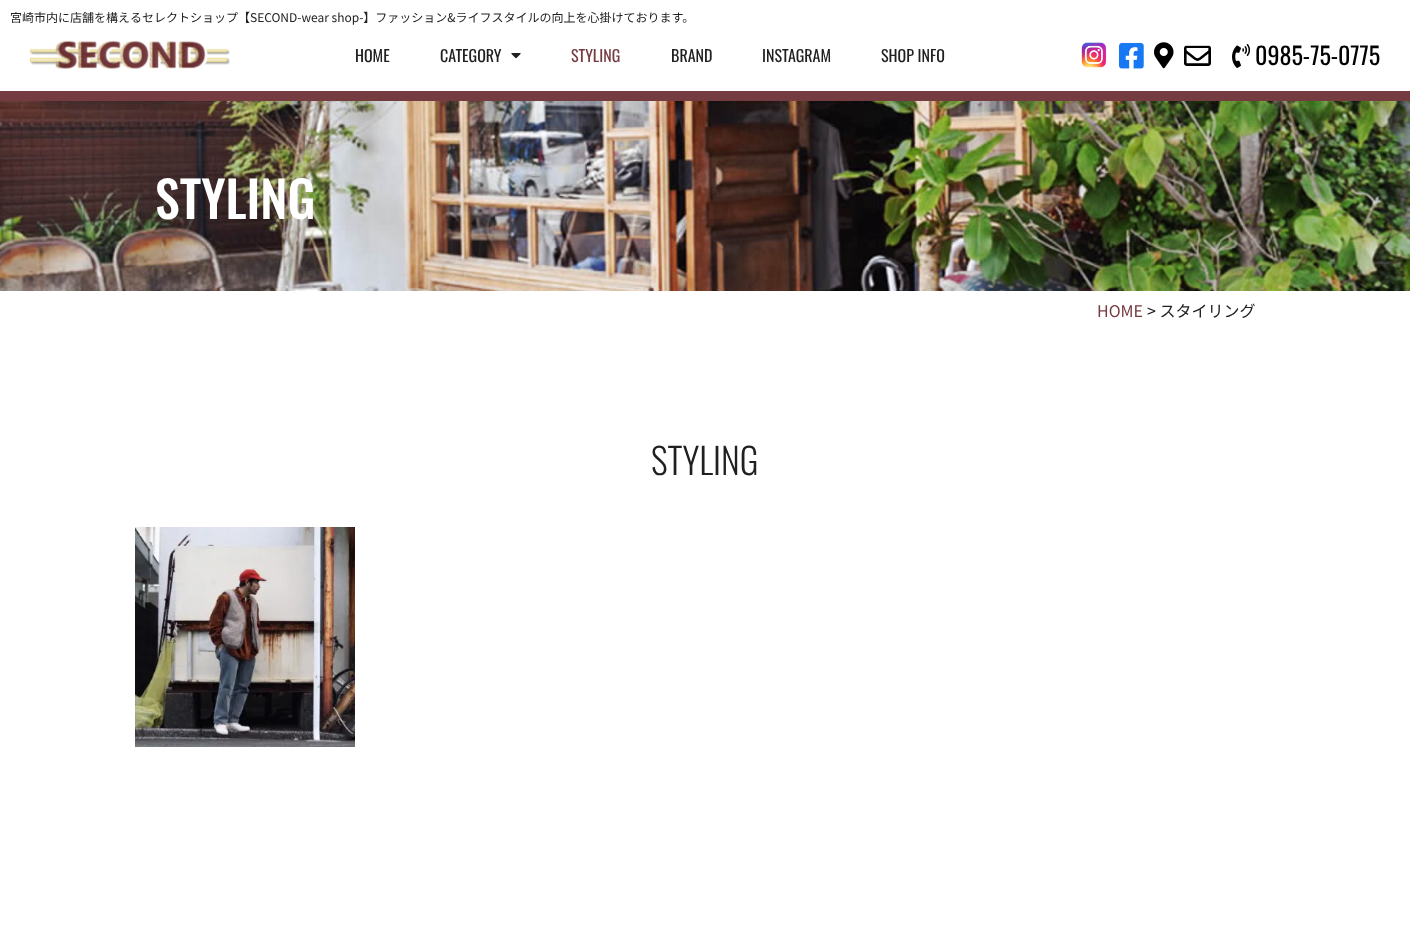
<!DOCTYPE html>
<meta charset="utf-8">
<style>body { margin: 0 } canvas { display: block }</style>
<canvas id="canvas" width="1410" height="933"></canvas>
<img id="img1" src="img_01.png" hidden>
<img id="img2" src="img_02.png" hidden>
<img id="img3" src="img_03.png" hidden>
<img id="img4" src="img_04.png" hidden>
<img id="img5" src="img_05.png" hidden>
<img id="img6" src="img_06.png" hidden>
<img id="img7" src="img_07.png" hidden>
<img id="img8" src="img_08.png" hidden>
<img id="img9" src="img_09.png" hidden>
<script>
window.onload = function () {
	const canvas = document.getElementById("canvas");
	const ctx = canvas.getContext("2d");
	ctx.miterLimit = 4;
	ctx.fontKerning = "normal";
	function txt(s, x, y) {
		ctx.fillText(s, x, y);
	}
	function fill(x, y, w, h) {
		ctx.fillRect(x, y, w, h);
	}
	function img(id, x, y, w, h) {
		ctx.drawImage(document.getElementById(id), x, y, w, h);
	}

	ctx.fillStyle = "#FFFFFF";
	fill(0, 0, 1410, 933);
	ctx.fillStyle = "#743B40";
	fill(0, 91, 1410, 10);
	img("img1", 30, 40, 200, 29);
	img("img2", 511, 53, 10, 6);
	img("img3", 1081, 42, 26, 26);
	img("img4", 1119, 42, 25, 27);
	img("img5", 1154, 42, 20, 27);
	img("img6", 1184, 45, 27, 21);
	img("img7", 1232, 44, 18, 24);
	img("img8", 0, 101, 1410, 190);
	img("img9", 135, 527, 220, 220);
	ctx.font = "12px Noto Sans JP";
	ctx.fillStyle = "#202020";
	txt("宮崎市内に店舗を構えるセレクトショップ【SECOND-wear shop-】ファッション&ライフスタイルの向上を心掛けております。", 10, 22);
	ctx.font = "16px Oswald";
	txt("HOME", 355, 62);
	txt("CATEGORY", 440, 62);
	ctx.fillStyle = "#743B40";
	txt("STYLING", 571, 62);
	ctx.fillStyle = "#202020";
	txt("BRAND", 671, 62);
	txt("INSTAGRAM", 762, 62);
	txt("SHOP INFO", 881, 62);
	ctx.font = "24px Oswald";
	ctx.fillStyle = "#000000";
	txt("0985-75-0775", 1255, 65);
	ctx.font = "500 50px Oswald";
	ctx.fillStyle = "#FFFFFF";
	txt("STYLING", 155, 219);
	ctx.font = "16px Noto Sans JP";
	ctx.fillStyle = "#743B40";
	txt("HOME", 1097, 317);
	ctx.fillStyle = "#202020";
	txt("> スタイリング", 1147, 317);
	ctx.font = "300 36px Oswald";
	txt("STYLING", 651, 475);
};
</script>
